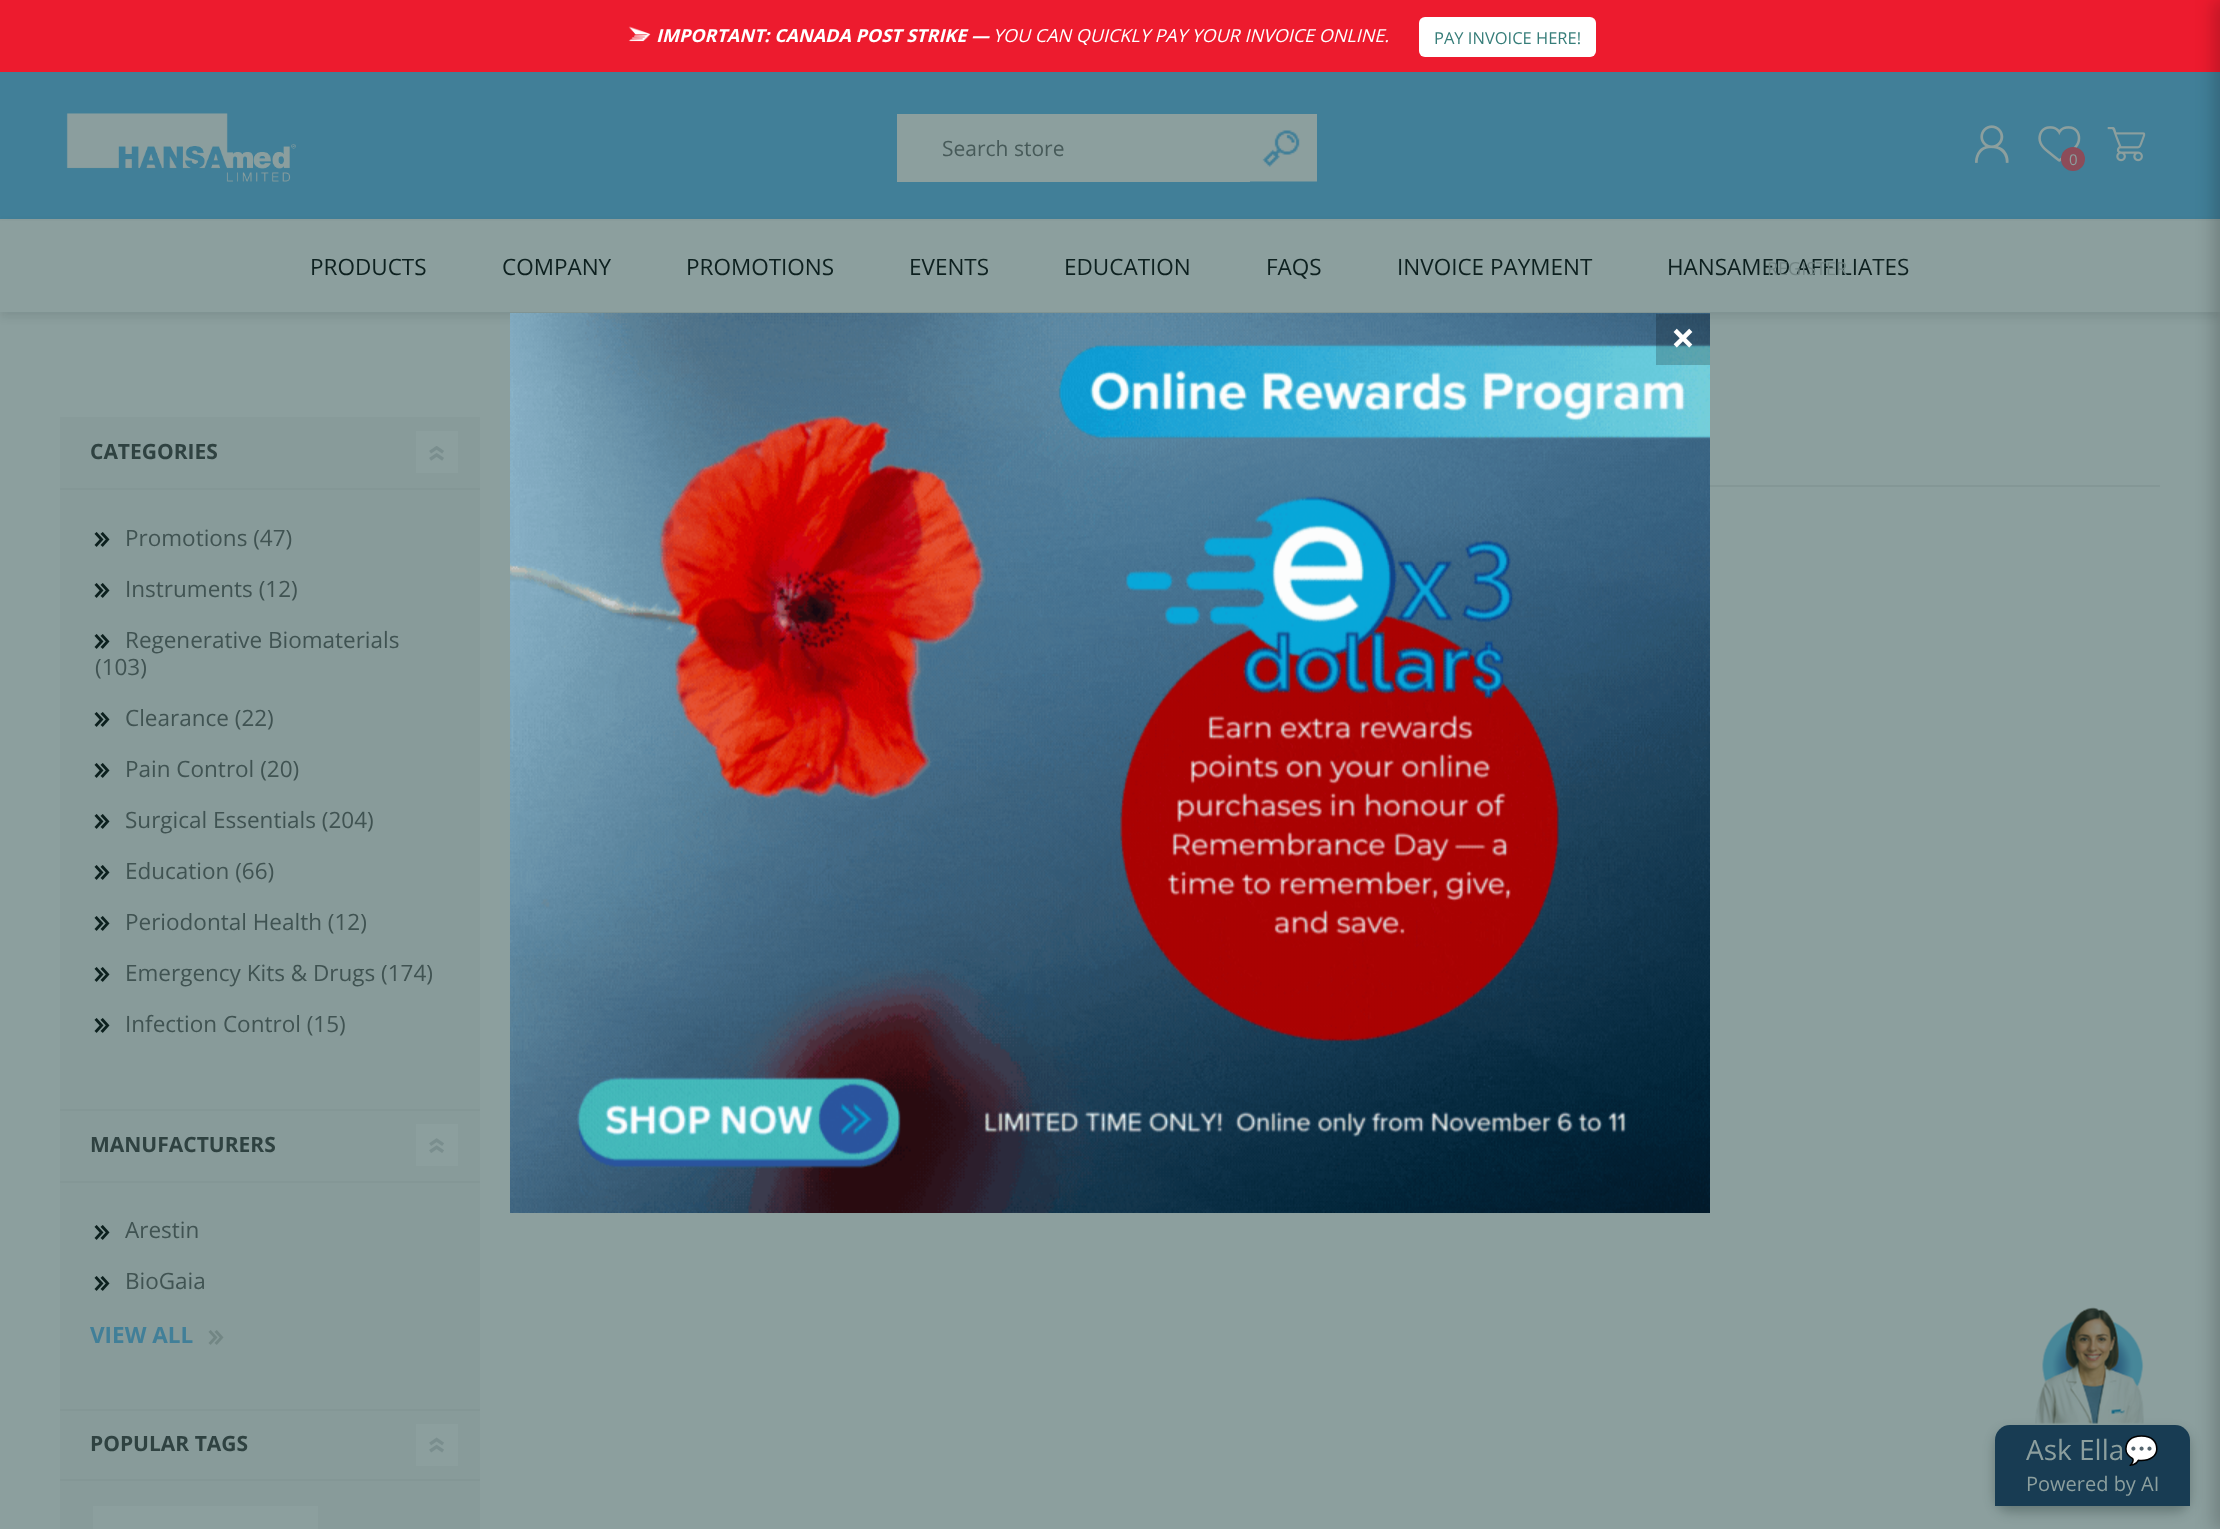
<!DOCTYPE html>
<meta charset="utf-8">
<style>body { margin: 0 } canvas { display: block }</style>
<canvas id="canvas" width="2220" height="1529"></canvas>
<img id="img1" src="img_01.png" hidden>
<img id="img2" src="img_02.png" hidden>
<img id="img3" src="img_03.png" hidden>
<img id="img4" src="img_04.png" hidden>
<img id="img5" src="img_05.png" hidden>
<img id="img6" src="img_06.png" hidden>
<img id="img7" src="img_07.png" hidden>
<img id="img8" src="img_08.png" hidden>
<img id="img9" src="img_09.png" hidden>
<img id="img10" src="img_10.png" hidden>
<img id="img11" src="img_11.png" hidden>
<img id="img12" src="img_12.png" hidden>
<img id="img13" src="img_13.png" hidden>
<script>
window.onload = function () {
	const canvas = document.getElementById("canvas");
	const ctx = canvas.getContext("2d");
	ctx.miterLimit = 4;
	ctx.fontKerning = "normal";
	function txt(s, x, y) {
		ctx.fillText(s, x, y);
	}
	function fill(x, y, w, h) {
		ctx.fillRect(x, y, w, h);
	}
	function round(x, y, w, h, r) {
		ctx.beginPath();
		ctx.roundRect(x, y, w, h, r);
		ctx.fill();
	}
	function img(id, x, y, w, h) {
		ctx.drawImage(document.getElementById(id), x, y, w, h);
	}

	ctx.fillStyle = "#8C9F9E";
	fill(0, 0, 2220, 1529);
	ctx.fillStyle = "#ED1B2E";
	fill(0, 0, 2220, 72);
	img("img1", 628, 26, 23, 16);
	ctx.fillStyle = "#FFFFFF";
	round(1419, 17, 177, 40, 6);
	ctx.fillStyle = "#417F98";
	fill(0, 72, 2220, 147);
	img("img2", 66, 113, 230, 69);
	ctx.fillStyle = "#8C9F9E";
	fill(897, 114, 353, 68);
	img("img3", 1250, 114, 67, 68);
	ctx.fillStyle = "rgba(13, 32, 31, 0.3)";
	ctx.filter = "blur(6px)";
	ctx.beginPath();
	ctx.roundRect(1995, 1431, 195, 81, 15);
	ctx.fill();
	ctx.filter = "none";
	ctx.fillStyle = "#183C53";
	ctx.beginPath();
	ctx.roundRect(1995, 1425, 195, 81, [15, 15, 0, 0]);
	ctx.fill();
	ctx.fillStyle = "rgba(13, 32, 31, 0.1)";
	ctx.filter = "blur(4px)";
	ctx.beginPath();
	ctx.rect(0, 224, 2220, 93);
	ctx.fill();
	ctx.filter = "none";
	ctx.fillStyle = "#8C9F9E";
	fill(0, 221, 2220, 91);
	ctx.fillStyle = "rgba(0, 0, 0, 0.2)";
	ctx.filter = "blur(9px)";
	ctx.beginPath();
	ctx.rect(2214, 0, 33, 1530);
	ctx.fill();
	ctx.filter = "none";
	img("img4", 2038, 126, 43, 36);
	ctx.fillStyle = "#8C4C59";
	ctx.beginPath();
	ctx.arc(2073, 159, 12, 0, Math.PI * 2);
	ctx.fill();
	img("img5", 2107, 127, 39, 35);
	img("img6", 1975, 125, 34, 38);
	img("img7", 2035, 1307, 109, 117);
	ctx.fillStyle = "#849796";
	fill(522, 485, 1638, 2);
	img("img8", 510, 313, 1200, 900);
	ctx.fillStyle = "rgba(0, 0, 0, 0.2)";
	fill(1656, 314, 54, 51);
	ctx.fillStyle = "#889B9A";
	fill(60, 417, 420, 1112);
	ctx.fillStyle = "#849796";
	fill(60, 488, 420, 2);
	ctx.fillStyle = "#8C9F9E";
	fill(416, 431, 42, 42);
	img("img9", 429, 446, 15, 15);
	ctx.fillStyle = "#849796";
	fill(60, 1109, 420, 2);
	img("img10", 94, 532, 16, 15);
	img("img10", 94, 583, 16, 15);
	img("img10", 94, 634, 16, 15);
	img("img10", 94, 712, 16, 15);
	img("img10", 94, 763, 16, 15);
	img("img10", 94, 814, 16, 15);
	img("img10", 94, 865, 16, 15);
	img("img10", 94, 916, 16, 15);
	img("img10", 94, 967, 16, 15);
	img("img10", 94, 1018, 16, 15);
	fill(60, 1181, 420, 2);
	ctx.fillStyle = "#8C9F9E";
	fill(416, 1124, 42, 42);
	img("img11", 429, 1138, 15, 15);
	ctx.fillStyle = "#849796";
	fill(60, 1409, 420, 2);
	img("img10", 94, 1225, 16, 15);
	img("img10", 94, 1276, 16, 15);
	img("img12", 208, 1330, 16, 15);
	fill(60, 1479, 420, 2);
	ctx.fillStyle = "#8C9F9E";
	fill(416, 1424, 42, 42);
	img("img13", 429, 1437, 15, 16);
	fill(93, 1506, 225, 23);
	ctx.font = "italic bold 18px Open Sans";
	ctx.fillStyle = "#FFFFFF";
	txt("IMPORTANT: CANADA POST STRIKE —", 656, 42);
	ctx.font = "italic 18px Open Sans";
	txt("YOU CAN QUICKLY PAY YOUR INVOICE ONLINE.", 993, 42);
	ctx.font = "16.5px Open Sans";
	ctx.fillStyle = "#367D79";
	txt("PAY INVOICE HERE!", 1434, 44);
	ctx.font = "21px Open Sans";
	ctx.fillStyle = "#475A59";
	txt("Search store", 942, 156);
	ctx.font = "15px Open Sans";
	ctx.fillStyle = "#8C9F9E";
	txt("0", 2069, 165);
	ctx.font = "28px Open Sans";
	txt("Ask Ella", 2026, 1460);
	ctx.font = "28px Noto Color Emoji";
	txt("💬", 2124, 1460);
	ctx.font = "20px Open Sans";
	txt("Powered by AI", 2026, 1491);
	ctx.font = "22.5px Open Sans";
	ctx.fillStyle = "#0D201F";
	txt("PRODUCTS", 310, 275);
	txt("COMPANY", 502, 275);
	txt("PROMOTIONS", 686, 275);
	txt("EVENTS", 909, 275);
	txt("EDUCATION", 1064, 275);
	txt("FAQS", 1266, 275);
	txt("INVOICE PAYMENT", 1397, 275);
	txt("HANSAMED AFFILIATES", 1667, 275);
	ctx.font = "18px Open Sans";
	ctx.fillStyle = "#718483";
	txt("REGISTER", 1767, 275);
	ctx.font = "bold 42px Open Sans";
	ctx.fillStyle = "#FFFFFF";
	txt("×", 1671, 353);
	ctx.font = "bold 21px Open Sans";
	ctx.fillStyle = "#2F4241";
	txt("CATEGORIES", 90, 459);
	ctx.font = "22.5px Open Sans";
	ctx.fillStyle = "#405352";
	txt("Promotions (47)", 125, 546);
	txt("Instruments (12)", 125, 597);
	txt("Regenerative Biomaterials", 125, 648);
	txt("(103)", 95, 675);
	txt("Clearance (22)", 125, 726);
	txt("Pain Control (20)", 125, 777);
	txt("Surgical Essentials (204)", 125, 828);
	txt("Education (66)", 125, 879);
	txt("Periodontal Health (12)", 125, 930);
	txt("Emergency Kits & Drugs (174)", 125, 981);
	txt("Infection Control (15)", 125, 1032);
	ctx.font = "bold 21px Open Sans";
	ctx.fillStyle = "#2F4241";
	txt("MANUFACTURERS", 90, 1152);
	ctx.font = "22.5px Open Sans";
	ctx.fillStyle = "#405352";
	txt("Arestin", 125, 1238);
	txt("BioGaia", 125, 1289);
	ctx.font = "bold 22.5px Open Sans";
	ctx.fillStyle = "#417F98";
	txt("VIEW ALL", 90, 1343);
	ctx.font = "bold 21px Open Sans";
	ctx.fillStyle = "#2F4241";
	txt("POPULAR TAGS", 90, 1451);
};
</script>
